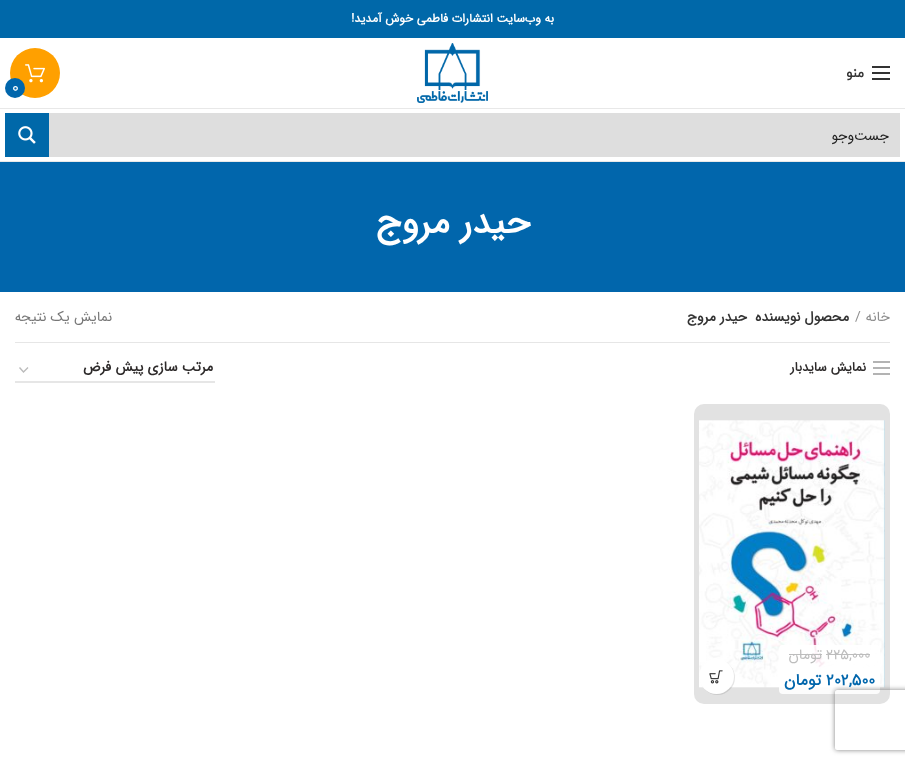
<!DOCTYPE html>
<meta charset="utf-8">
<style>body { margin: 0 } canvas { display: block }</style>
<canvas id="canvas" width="905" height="764"></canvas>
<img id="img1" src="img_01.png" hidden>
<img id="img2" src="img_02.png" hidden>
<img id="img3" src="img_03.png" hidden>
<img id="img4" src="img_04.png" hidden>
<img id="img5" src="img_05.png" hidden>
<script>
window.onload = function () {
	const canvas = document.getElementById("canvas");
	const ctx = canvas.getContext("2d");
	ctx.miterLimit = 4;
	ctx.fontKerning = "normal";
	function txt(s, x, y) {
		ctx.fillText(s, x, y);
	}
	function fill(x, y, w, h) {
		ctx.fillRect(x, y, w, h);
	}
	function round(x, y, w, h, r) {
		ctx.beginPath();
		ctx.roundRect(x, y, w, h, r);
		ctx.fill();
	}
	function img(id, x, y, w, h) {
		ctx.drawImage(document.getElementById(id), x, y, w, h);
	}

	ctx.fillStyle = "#FFFFFF";
	fill(0, 0, 905, 764);
	ctx.fillStyle = "#0068A9";
	fill(0, 0, 905, 38);
	ctx.fillStyle = "#E8E8E8";
	fill(0, 108, 905, 1);
	ctx.fillStyle = "#333333";
	fill(872, 72, 18, 2);
	fill(872, 66, 18, 2);
	fill(872, 78, 18, 2);
	img("img1", 417, 43, 71, 60);
	ctx.fillStyle = "#FFA000";
	ctx.beginPath();
	ctx.arc(35, 73, 25, 0, Math.PI * 2);
	ctx.fill();
	img("img2", 25, 64, 20, 19);
	ctx.fillStyle = "#0166AC";
	ctx.beginPath();
	ctx.arc(15, 88, 10, 0, Math.PI * 2);
	ctx.fill();
	ctx.fillStyle = "#E8E8E8";
	fill(0, 161, 905, 1);
	ctx.fillStyle = "#DEDEDE";
	fill(49, 113, 851, 44);
	ctx.fillStyle = "#0068A9";
	fill(5, 113, 44, 44);
	img("img3", 18, 126, 18, 18);
	ctx.fillStyle = "#0166AC";
	fill(0, 162, 905, 130);
	ctx.fillStyle = "#E6E6E6";
	fill(15, 342, 875, 1);
	ctx.fillStyle = "#B3B3B3";
	fill(873, 367, 17, 2);
	fill(873, 361, 17, 2);
	fill(873, 373, 17, 2);
	ctx.beginPath();
	ctx.moveTo(19.5, 367.5);
	ctx.lineTo(23.5, 372);
	ctx.lineTo(28, 367.5);
	ctx.strokeStyle = "#BBBBBB";
	ctx.lineWidth = 1.4;
	ctx.stroke();
	ctx.fillStyle = "#E6E6E6";
	fill(15, 381, 200, 2);
	ctx.fillStyle = "#E2E2E2";
	round(694, 404, 196, 300, 10);
	img("img4", 699, 420, 186, 268);
	ctx.fillStyle = "rgba(255, 255, 255, 0.9)";
	round(779, 645, 101, 49, 4);
	ctx.fillStyle = "#BDBDBD";
	fill(826, 654, 44, 1);
	fill(789, 654, 33, 1);
	ctx.fillStyle = "rgba(0, 0, 0, 0.1)";
	ctx.filter = "blur(0.5px)";
	ctx.beginPath();
	ctx.roundRect(700, 660, 35, 35, 17.5);
	ctx.fill();
	ctx.filter = "none";
	ctx.fillStyle = "#FFFFFF";
	ctx.beginPath();
	ctx.arc(716.5, 676.5, 17.5, 0, Math.PI * 2);
	ctx.fill();
	img("img5", 709, 670, 14, 14);
	ctx.beginPath();
	ctx.moveTo(709.5, 681.5);
	ctx.bezierCurveTo(707, 679, 707, 675, 709.5, 672.5);
	ctx.strokeStyle = "#FFFFFF";
	ctx.lineWidth = 1;
	ctx.stroke();
	ctx.save();
	ctx.beginPath();
	ctx.moveTo(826, 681);
	ctx.lineTo(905, 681);
	ctx.lineTo(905, 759);
	ctx.lineTo(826, 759);
	ctx.closePath();
	ctx.moveTo(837, 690);
	ctx.lineTo(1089, 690);
	ctx.bezierCurveTo(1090, 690, 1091, 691, 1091, 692);
	ctx.lineTo(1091, 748);
	ctx.bezierCurveTo(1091, 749, 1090, 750, 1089, 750);
	ctx.lineTo(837, 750);
	ctx.bezierCurveTo(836, 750, 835, 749, 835, 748);
	ctx.lineTo(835, 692);
	ctx.bezierCurveTo(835, 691, 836, 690, 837, 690);
	ctx.closePath();
	ctx.clip("evenodd");
	ctx.fillStyle = "#808080";
	ctx.filter = "blur(2.5px)";
	ctx.beginPath();
	ctx.roundRect(835, 690, 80, 60, 2);
	ctx.fill();
	ctx.filter = "none";
	ctx.restore();
	ctx.direction = "rtl";
	ctx.font = "bold 12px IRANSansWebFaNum";
	txt("به وب‌سایت انتشارات فاطمی خوش آمدید!", 554, 22);
	ctx.font = "bold 13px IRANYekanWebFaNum";
	ctx.fillStyle = "#333333";
	txt("منو", 864, 77);
	ctx.direction = "ltr";
	ctx.font = "14px IRANYekanWebFaNum";
	ctx.fillStyle = "#FFFFFF";
	txt("0", 12, 92);
	ctx.direction = "rtl";
	ctx.font = "14px IRANSansWebFaNum";
	ctx.fillStyle = "#212121";
	txt("جست‌وجو", 889, 140);
	ctx.font = "bold 36px IRANSansWebFaNum";
	ctx.fillStyle = "#FFFFFF";
	txt("حیدر مروج", 530, 233);
	ctx.font = "14px IRANSansWebFaNum";
	ctx.fillStyle = "#8E8E8E";
	txt("خانه", 890, 321);
	ctx.direction = "ltr";
	txt("/", 855, 321);
	ctx.direction = "rtl";
	ctx.font = "bold 14px IRANSansWebFaNum";
	ctx.fillStyle = "#333333";
	txt("محصول نویسنده", 849, 321);
	txt("حیدر مروج", 747, 321);
	ctx.font = "14px IRANSansWebFaNum";
	ctx.fillStyle = "#777777";
	txt("نمایش یک نتیجه", 112, 321);
	ctx.font = "bold 13px IRANSansWebFaNum";
	ctx.fillStyle = "#2D2A2A";
	txt("نمایش سایدبار", 866, 371);
	ctx.font = "bold 14px IRANSansWebFaNum";
	txt("مرتب سازی پیش فرض", 213, 371);
	ctx.direction = "ltr";
	ctx.font = "14.5px IRANSansWebFaNum";
	ctx.fillStyle = "#BDBDBD";
	txt("225,000", 826, 659);
	ctx.direction = "rtl";
	txt("تومان", 822, 659);
	ctx.direction = "ltr";
	ctx.font = "bold 16px IRANSansWebFaNum";
	ctx.fillStyle = "#0166AC";
	txt("202,500", 826, 685);
	ctx.direction = "rtl";
	txt("تومان", 821, 685);
};
</script>
